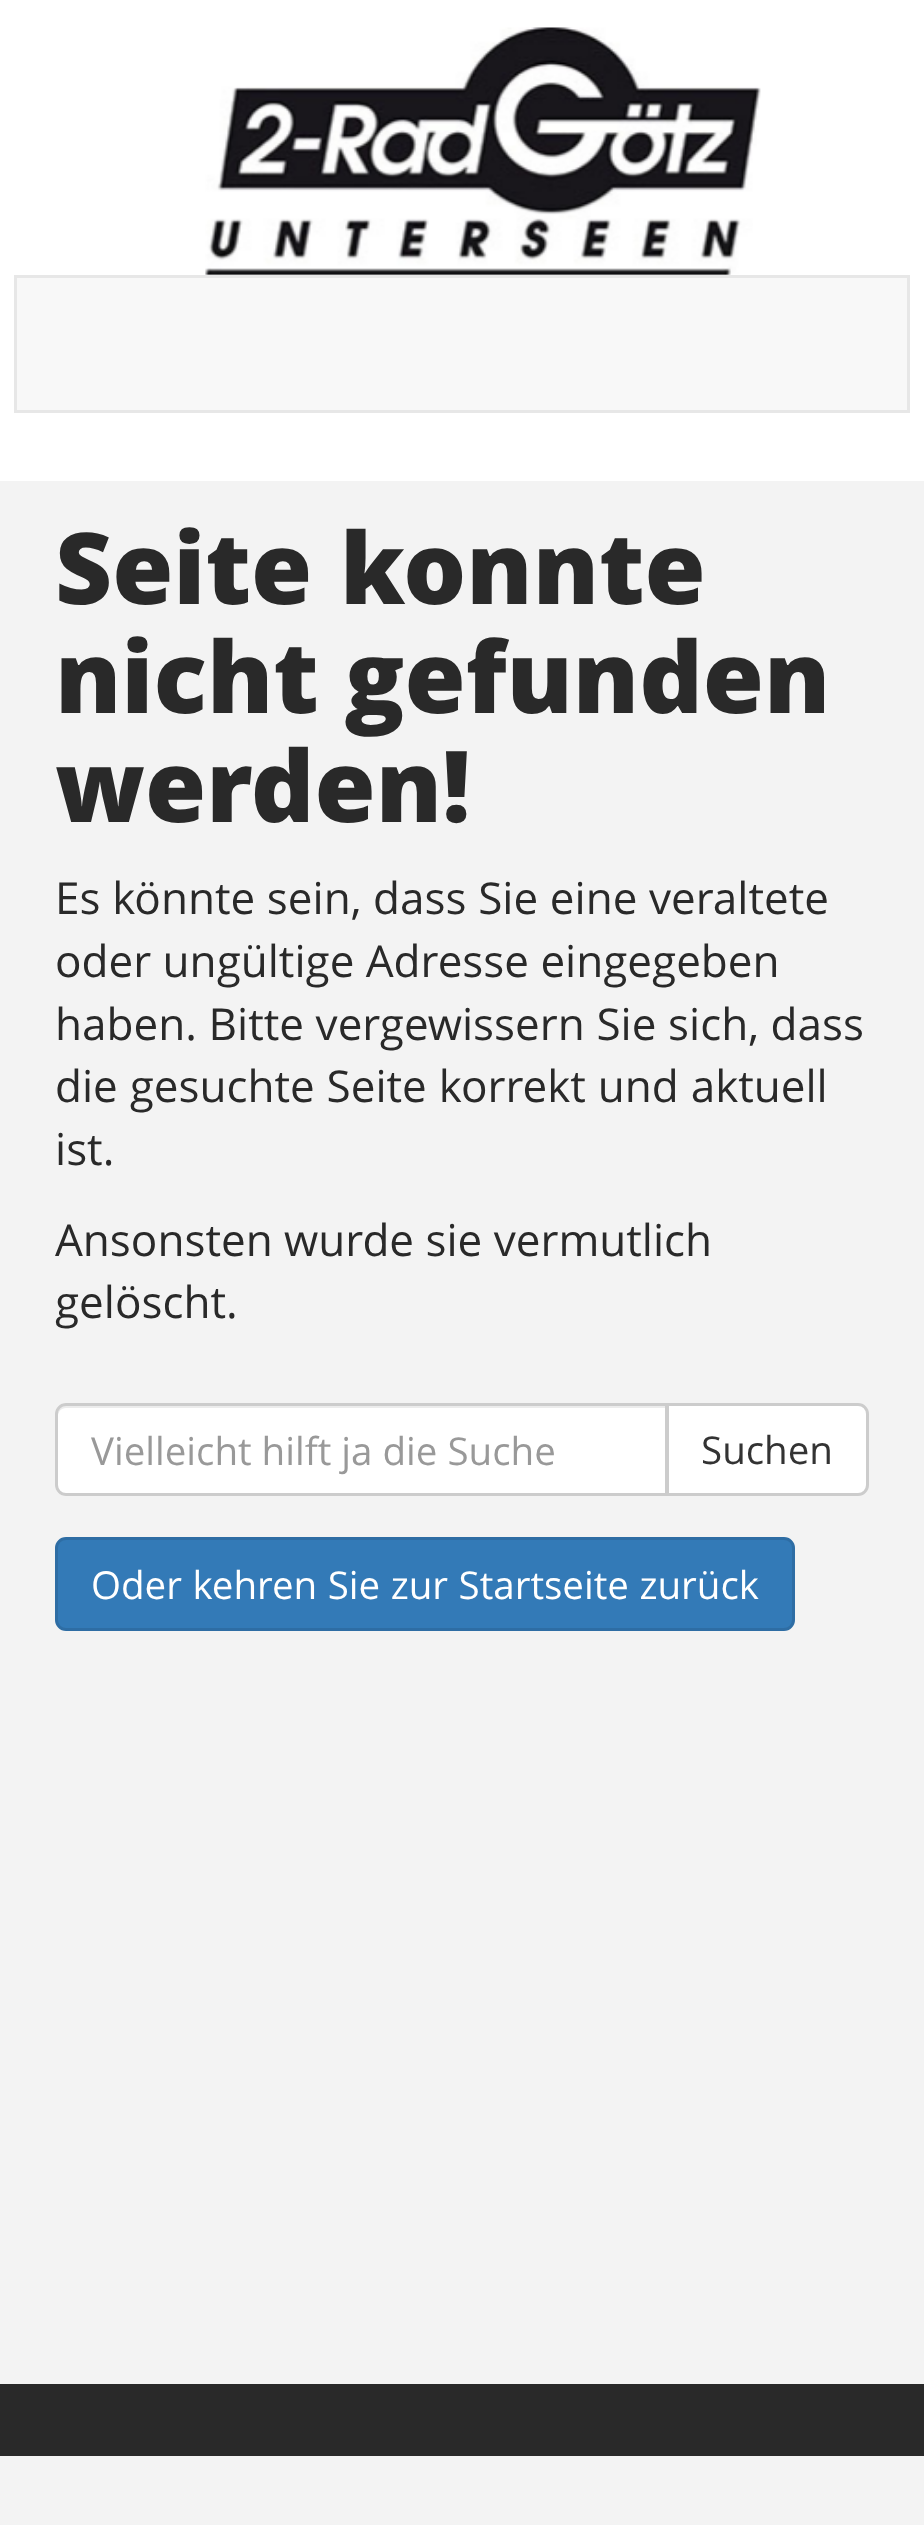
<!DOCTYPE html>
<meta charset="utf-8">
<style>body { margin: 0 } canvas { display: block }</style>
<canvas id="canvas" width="924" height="2525"></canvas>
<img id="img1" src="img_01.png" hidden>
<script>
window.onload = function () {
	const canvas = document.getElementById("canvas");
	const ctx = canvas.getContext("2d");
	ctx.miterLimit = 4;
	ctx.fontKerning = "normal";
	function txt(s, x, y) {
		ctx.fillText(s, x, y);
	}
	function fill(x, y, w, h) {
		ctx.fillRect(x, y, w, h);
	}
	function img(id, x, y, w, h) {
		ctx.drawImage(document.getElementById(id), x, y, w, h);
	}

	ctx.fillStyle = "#F3F3F3";
	fill(0, 0, 924, 2525);
	ctx.fillStyle = "#FFFFFF";
	fill(0, 0, 924, 481);
	img("img1", 205, 27, 556, 248);
	ctx.fillStyle = "#F8F8F8";
	ctx.beginPath();
	ctx.rect(15.5, 276.5, 893, 135);
	ctx.fill();
	ctx.strokeStyle = "#E7E7E7";
	ctx.lineWidth = 3;
	ctx.stroke();
	ctx.fillStyle = "#FFFFFF";
	ctx.beginPath();
	ctx.roundRect(55, 1403, 613, 93, [11, 0, 0, 11]);
	ctx.fill();
	ctx.fillStyle = "#ECECEC";
	ctx.beginPath();
	ctx.moveTo(66, 1408);
	ctx.lineTo(666, 1408);
	ctx.lineTo(666, 1405);
	ctx.lineTo(66, 1405);
	ctx.bezierCurveTo(62, 1405, 58, 1409, 58, 1413);
	ctx.lineTo(58, 1416);
	ctx.bezierCurveTo(58, 1412, 61, 1408, 66, 1408);
	ctx.closePath();
	ctx.fill();
	ctx.beginPath();
	ctx.roundRect(56.5, 1404.5, 610, 90, [9.5, 0, 0, 9.5]);
	ctx.strokeStyle = "#CCCCCC";
	ctx.stroke();
	ctx.fillStyle = "#FFFFFF";
	ctx.beginPath();
	ctx.roundRect(667.5, 1404.5, 200, 90, [0, 9.5, 9.5, 0]);
	ctx.fill();
	ctx.stroke();
	ctx.fillStyle = "#337AB7";
	ctx.beginPath();
	ctx.roundRect(56.5, 1538.5, 737, 91, 9.5);
	ctx.fill();
	ctx.strokeStyle = "#2E6DA4";
	ctx.stroke();
	ctx.fillStyle = "#292929";
	fill(0, 2384, 924, 72);
	ctx.wordSpacing = "2px";
	ctx.font = "800 99px Open Sans";
	txt("Seite konnte", 55, 604);
	ctx.wordSpacing = "0px";
	txt("nicht gefunden", 55, 713);
	txt("werden!", 55, 822);
	ctx.wordSpacing = "0.25px";
	ctx.font = "44px Open Sans";
	txt("Es könnte sein, dass Sie eine veraltete", 55, 914);
	ctx.wordSpacing = "0px";
	txt("oder ungültige Adresse eingegeben", 55, 977);
	ctx.wordSpacing = "0.25px";
	txt("haben. Bitte vergewissern Sie sich, dass", 55, 1040);
	ctx.wordSpacing = "0.5px";
	txt("die gesuchte Seite korrekt und aktuell", 55, 1102);
	ctx.wordSpacing = "0px";
	txt("ist.", 55, 1165);
	txt("Ansonsten wurde sie vermutlich", 55, 1256);
	txt("gelöscht.", 55, 1318);
	ctx.font = "38.5px Open Sans";
	ctx.fillStyle = "#999999";
	txt("Vielleicht hilft ja die Suche", 91, 1465);
	ctx.fillStyle = "#333333";
	txt("Suchen", 701, 1464);
	ctx.wordSpacing = "0.5px";
	ctx.fillStyle = "#FFFFFF";
	txt("Oder kehren Sie zur Startseite zurück", 91, 1599);
};
</script>
